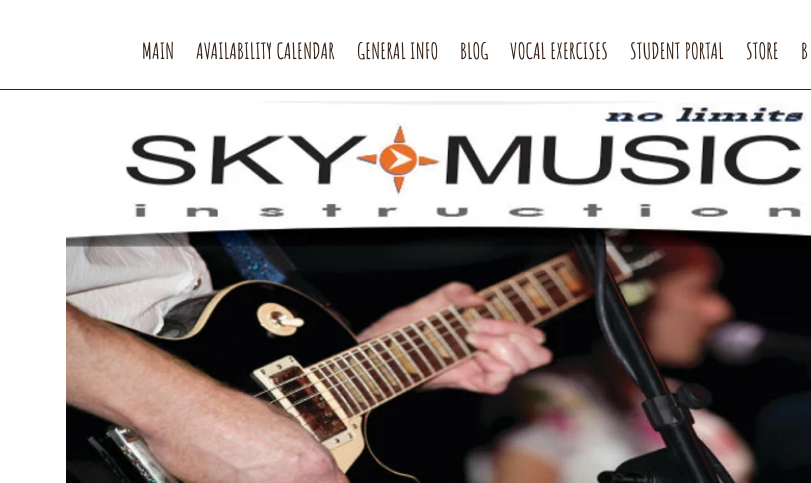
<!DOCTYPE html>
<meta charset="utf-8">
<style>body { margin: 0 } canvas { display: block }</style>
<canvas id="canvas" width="811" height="483"></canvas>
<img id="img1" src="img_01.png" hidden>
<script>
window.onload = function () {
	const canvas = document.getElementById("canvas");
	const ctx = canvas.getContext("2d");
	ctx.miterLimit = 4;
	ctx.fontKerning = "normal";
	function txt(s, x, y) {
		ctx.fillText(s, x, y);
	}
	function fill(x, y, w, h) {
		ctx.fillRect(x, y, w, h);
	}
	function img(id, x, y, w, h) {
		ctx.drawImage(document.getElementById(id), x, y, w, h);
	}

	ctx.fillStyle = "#FFFFFF";
	fill(0, 0, 811, 483);
	ctx.fillStyle = "#342216";
	fill(0, 89, 811, 1);
	img("img1", 66, 101, 745, 382);
	ctx.font = "bold 22px Amatic SC";
	txt("MAIN", 142, 59);
	txt("AVAILABILITY CALENDAR", 196, 59);
	txt("GENERAL INFO", 357, 59);
	txt("BLOG", 460, 59);
	txt("VOCAL EXERCISES", 510, 59);
	txt("STUDENT PORTAL", 630, 59);
	txt("STORE", 746, 59);
	txt("B", 801, 59);
};
</script>
